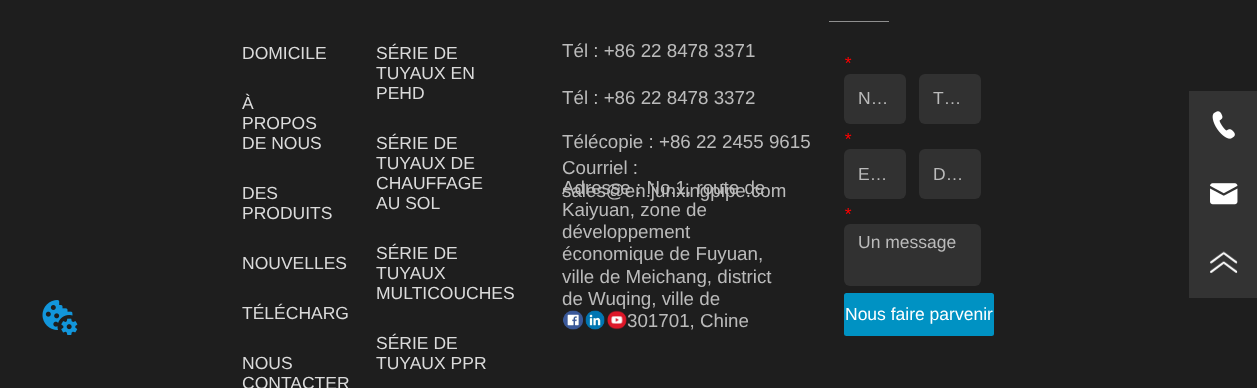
<!DOCTYPE html>
<meta charset="utf-8">
<style>body { margin: 0 } canvas { display: block }</style>
<canvas id="canvas" width="1257" height="388"></canvas>
<img id="img1" src="img_01.png" hidden>
<img id="img2" src="img_02.png" hidden>
<img id="img3" src="img_03.png" hidden>
<img id="img4" src="img_04.png" hidden>
<img id="img5" src="img_05.png" hidden>
<img id="img6" src="img_06.png" hidden>
<img id="img7" src="img_07.png" hidden>
<script>
window.onload = function () {
	const canvas = document.getElementById("canvas");
	const ctx = canvas.getContext("2d");
	ctx.miterLimit = 4;
	ctx.fontKerning = "normal";
	function txt(s, x, y) {
		ctx.fillText(s, x, y);
	}
	function fill(x, y, w, h) {
		ctx.fillRect(x, y, w, h);
	}
	function round(x, y, w, h, r) {
		ctx.beginPath();
		ctx.roundRect(x, y, w, h, r);
		ctx.fill();
	}
	function img(id, x, y, w, h) {
		ctx.drawImage(document.getElementById(id), x, y, w, h);
	}

	ctx.fillStyle = "#1E1E1E";
	fill(0, 0, 1257, 388);
	img("img1", 42, 300, 36, 35);
	img("img2", 563, 310, 20, 20);
	img("img3", 585, 310, 20, 20);
	img("img4", 607, 310, 20, 20);
	ctx.fillStyle = "#8F8F8F";
	fill(829, 21, 60, 1);
	ctx.fillStyle = "#313131";
	round(844, 74, 62, 50, 6);
	round(919, 74, 62, 50, 6);
	round(844, 149, 62, 50, 6);
	round(919, 149, 62, 50, 6);
	round(844, 224, 137, 62, 6);
	ctx.fillStyle = "#0092C3";
	round(844, 293, 150, 43, 2.5);
	ctx.fillStyle = "#333333";
	fill(1189, 91, 68, 207);
	img("img5", 1212, 111, 23, 28);
	img("img6", 1210, 183, 28, 22);
	img("img7", 1210, 251, 28, 23);
	ctx.font = "17.5px Liberation Sans";
	ctx.fillStyle = "#DBDBDB";
	txt("DOMICILE", 242, 59);
	txt("À", 242, 109);
	txt("PROPOS", 242, 129);
	txt("DE NOUS", 242, 149);
	txt("DES", 242, 199);
	txt("PRODUITS", 242, 219);
	txt("NOUVELLES", 242, 269);
	txt("TÉLÉCHARG", 242, 319);
	txt("NOUS", 242, 369);
	txt("CONTACTER", 242, 389);
	txt("SÉRIE DE", 376, 59);
	txt("TUYAUX EN", 376, 79);
	txt("PEHD", 376, 99);
	txt("SÉRIE DE", 376, 149);
	txt("TUYAUX DE", 376, 169);
	txt("CHAUFFAGE", 376, 189);
	txt("AU SOL", 376, 209);
	txt("SÉRIE DE", 376, 259);
	txt("TUYAUX", 376, 279);
	txt("MULTICOUCHES", 376, 299);
	txt("SÉRIE DE", 376, 349);
	txt("TUYAUX PPR", 376, 369);
	ctx.font = "18.75px Liberation Sans";
	ctx.fillStyle = "#BBBBBB";
	txt("Tél : +86 22 8478 3371", 562, 57);
	txt("Tél : +86 22 8478 3372", 562, 104);
	txt("Télécopie : +86 22 2455 9615", 562, 148);
	txt("Courriel :", 562, 174);
	txt("sales@en.junxingpipe.com", 562, 197);
	txt("Adresse : No.1, route de", 562, 194);
	txt("Kaiyuan, zone de", 562, 216);
	txt("développement", 562, 238);
	txt("économique de Fuyuan,", 562, 260);
	txt("ville de Meichang, district", 562, 283);
	txt("de Wuqing, ville de", 562, 305);
	txt("301701, Chine", 627, 327);
	ctx.font = "italic 17.5px Liberation Sans";
	ctx.fillStyle = "#FF0000";
	txt("*", 844, 69);
	ctx.font = "17.5px Liberation Sans";
	ctx.fillStyle = "#BBBBBB";
	txt("N…", 858, 104);
	txt("T…", 933, 104);
	ctx.font = "italic 17.5px Liberation Sans";
	ctx.fillStyle = "#FF0000";
	txt("*", 844, 145);
	ctx.font = "17.5px Liberation Sans";
	ctx.fillStyle = "#BBBBBB";
	txt("E…", 858, 180);
	txt("D…", 933, 180);
	ctx.font = "italic 17.5px Liberation Sans";
	ctx.fillStyle = "#FF0000";
	txt("*", 844, 220);
	ctx.font = "17.5px Liberation Sans";
	ctx.fillStyle = "#BBBBBB";
	txt("Un message", 858, 248);
	ctx.fillStyle = "#FFFFFF";
	txt("Nous faire parvenir", 845, 320);
};
</script>
